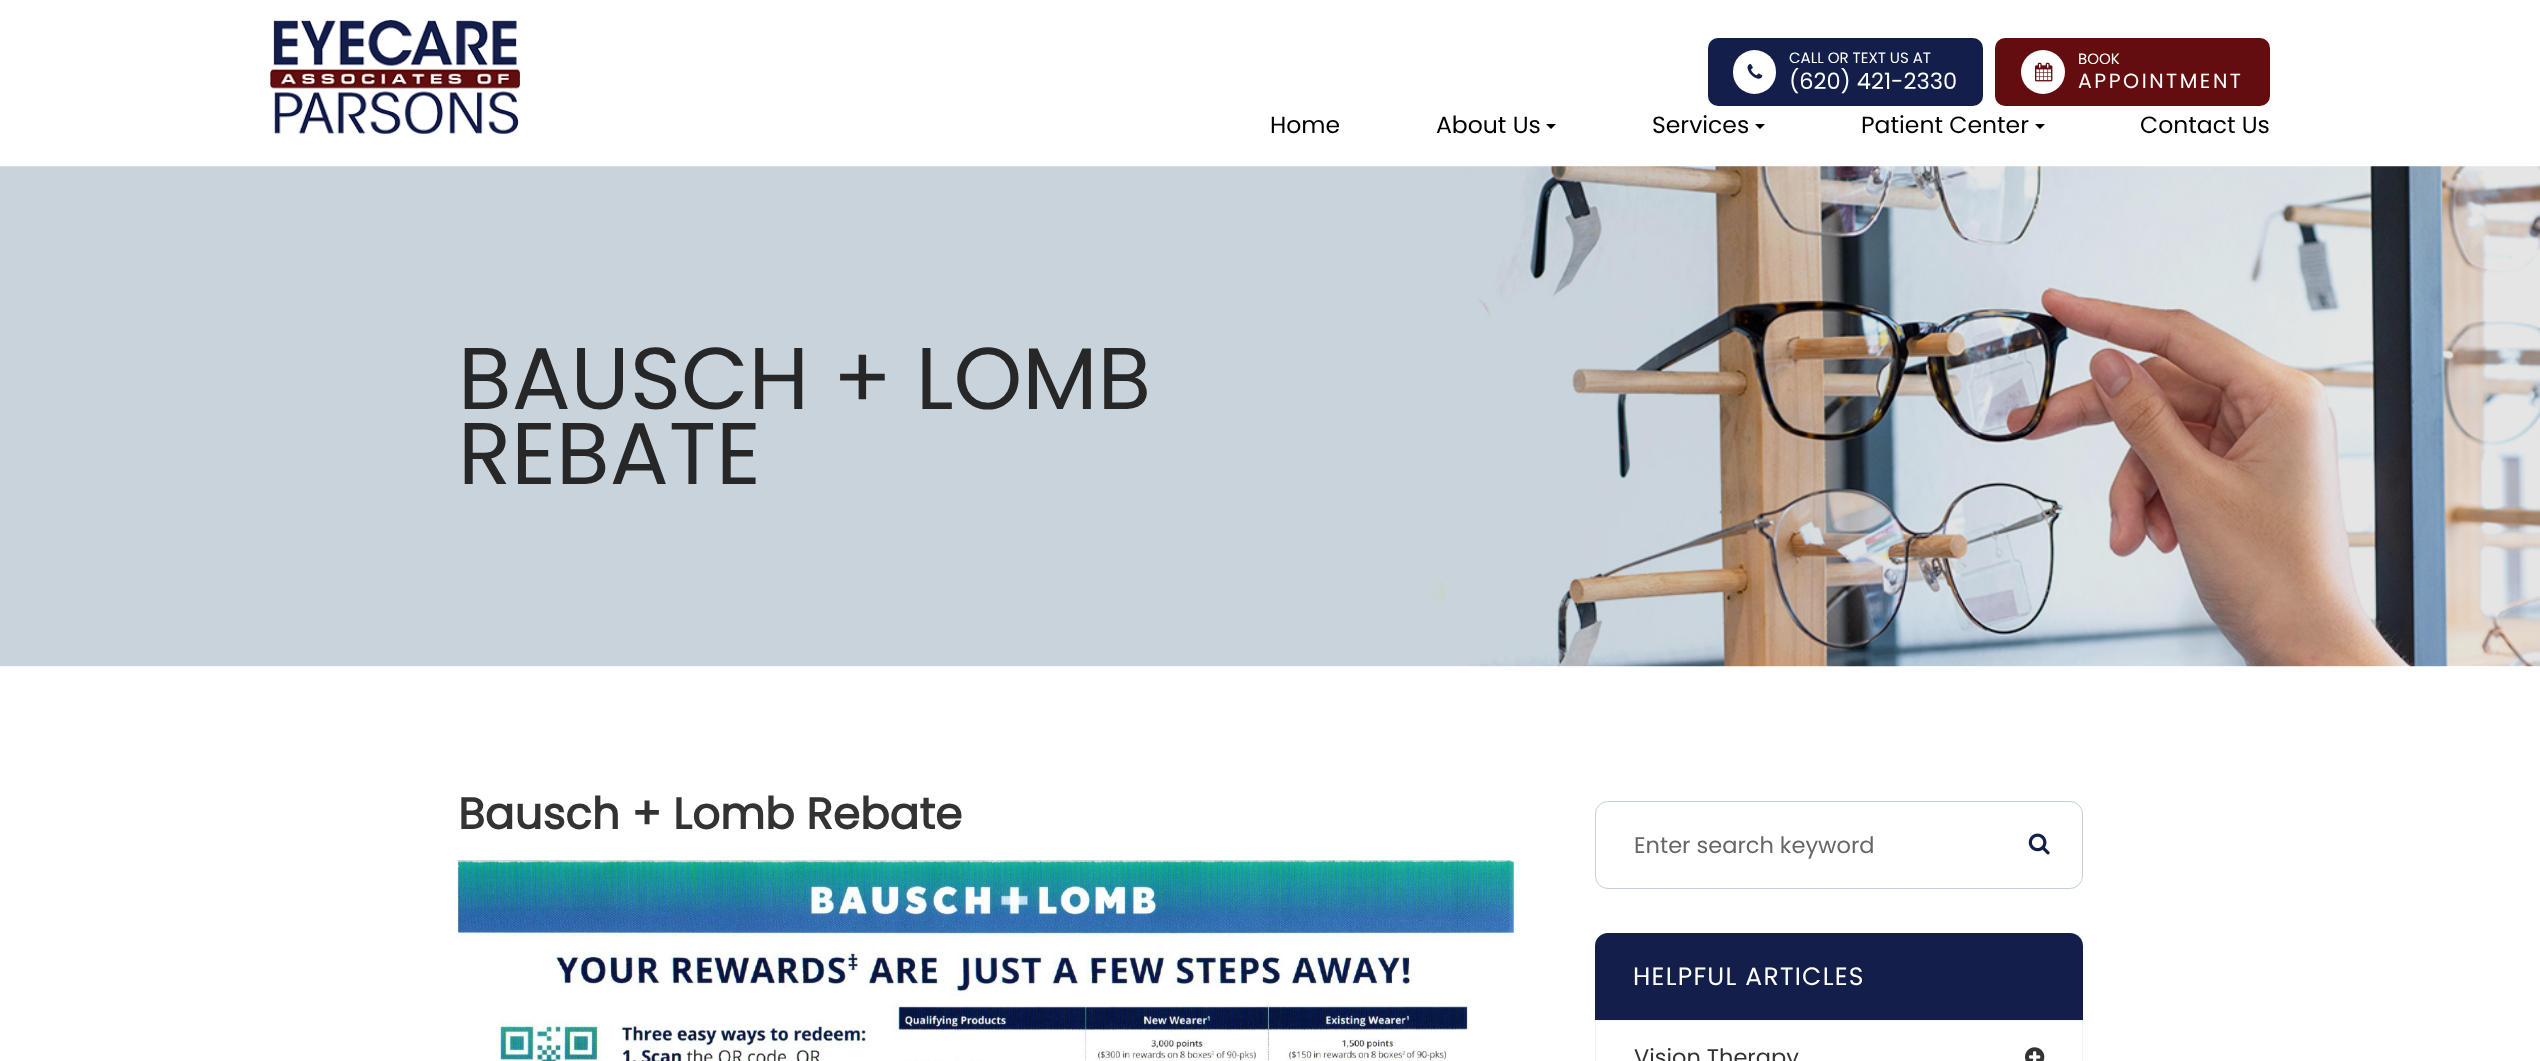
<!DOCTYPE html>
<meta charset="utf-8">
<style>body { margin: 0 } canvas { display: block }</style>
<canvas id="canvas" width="2540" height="1061"></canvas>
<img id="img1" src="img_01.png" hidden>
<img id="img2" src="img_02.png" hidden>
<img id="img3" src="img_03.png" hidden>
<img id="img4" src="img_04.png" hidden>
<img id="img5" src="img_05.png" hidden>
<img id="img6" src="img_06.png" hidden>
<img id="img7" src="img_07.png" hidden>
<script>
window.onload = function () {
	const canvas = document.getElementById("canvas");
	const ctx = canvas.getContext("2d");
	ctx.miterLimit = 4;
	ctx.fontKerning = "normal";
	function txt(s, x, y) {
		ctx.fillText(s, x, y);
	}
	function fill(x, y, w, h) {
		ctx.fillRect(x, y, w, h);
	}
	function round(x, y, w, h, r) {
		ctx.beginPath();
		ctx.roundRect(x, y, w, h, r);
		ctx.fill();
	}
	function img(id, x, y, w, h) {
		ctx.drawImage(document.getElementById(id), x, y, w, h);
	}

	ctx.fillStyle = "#FFFFFF";
	fill(0, 0, 2540, 1061);
	img("img1", 270, 20, 250, 114);
	ctx.fillStyle = "#131E4B";
	round(1708, 38, 275, 68, 10);
	ctx.fillStyle = "#FFFFFF";
	round(1733, 50, 43, 44, 21.5);
	img("img2", 1747, 64, 16, 15);
	ctx.fillStyle = "#630D0E";
	round(1995, 38, 275, 68, 10);
	ctx.fillStyle = "#FFFFFF";
	ctx.beginPath();
	ctx.arc(2043, 72, 22, 0, Math.PI * 2);
	ctx.fill();
	img("img3", 2035, 62, 18, 20);
	ctx.fillStyle = "#000000";
	ctx.beginPath();
	ctx.moveTo(1546, 124);
	ctx.lineTo(1556, 124);
	ctx.lineTo(1551, 129);
	ctx.closePath();
	ctx.fill();
	ctx.beginPath();
	ctx.moveTo(1755, 124);
	ctx.lineTo(1765, 124);
	ctx.lineTo(1760, 129);
	ctx.closePath();
	ctx.fill();
	ctx.beginPath();
	ctx.moveTo(2035, 124);
	ctx.lineTo(2045, 124);
	ctx.lineTo(2040, 129);
	ctx.closePath();
	ctx.fill();
	img("img4", 0, 166, 2540, 501);
	img("img5", 457, 860, 1057, 201);
	ctx.beginPath();
	ctx.roundRect(1595.5, 801.5, 487, 87, 12.5);
	ctx.strokeStyle = "#C6CFD6";
	ctx.stroke();
	img("img6", 2028, 833, 22, 22);
	ctx.fillStyle = "#131E4B";
	ctx.beginPath();
	ctx.roundRect(1595, 933, 488, 87, [13, 13, 0, 0]);
	ctx.fill();
	ctx.strokeStyle = "#F2F2F2";
	ctx.strokeRect(1595.5, 1020.5, 487, 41);
	img("img7", 2025, 1047, 20, 14);
	ctx.font = "15px Poppins";
	ctx.fillStyle = "#FFFFFF";
	txt("CALL OR TEXT US AT", 1789, 63);
	ctx.font = "22.5px Poppins";
	txt("(620) 421-2330", 1789, 89);
	ctx.font = "15px Poppins";
	txt("BOOK", 2078, 64);
	ctx.letterSpacing = "2.5px";
	ctx.font = "20.5px Poppins";
	txt("APPOINTMENT", 2078, 88);
	ctx.letterSpacing = "0px";
	ctx.font = "23.5px Poppins";
	ctx.fillStyle = "#000000";
	txt("Home", 1270, 133);
	txt("About Us", 1436, 133);
	txt("Services", 1652, 133);
	txt("Patient Center", 1861, 133);
	txt("Contact Us", 2140, 133);
	ctx.font = "87.5px Poppins";
	ctx.fillStyle = "#272727";
	txt("BAUSCH + LOMB", 458, 409);
	txt("REBATE", 458, 484);
	ctx.font = "bold 43.75px Poppins";
	ctx.fillStyle = "#333333";
	txt("Bausch + Lomb Rebate", 458, 829);
	ctx.font = "22.5px Poppins";
	ctx.fillStyle = "#666666";
	txt("Enter search keyword", 1634, 853);
	ctx.letterSpacing = "1.25px";
	ctx.font = "25px Poppins";
	ctx.fillStyle = "#FFFFFF";
	txt("HELPFUL ARTICLES", 1633, 985);
	ctx.letterSpacing = "0px";
	ctx.font = "22.5px Poppins";
	ctx.fillStyle = "#333333";
	txt("Vision Therapy", 1634, 1065);
};
</script>
